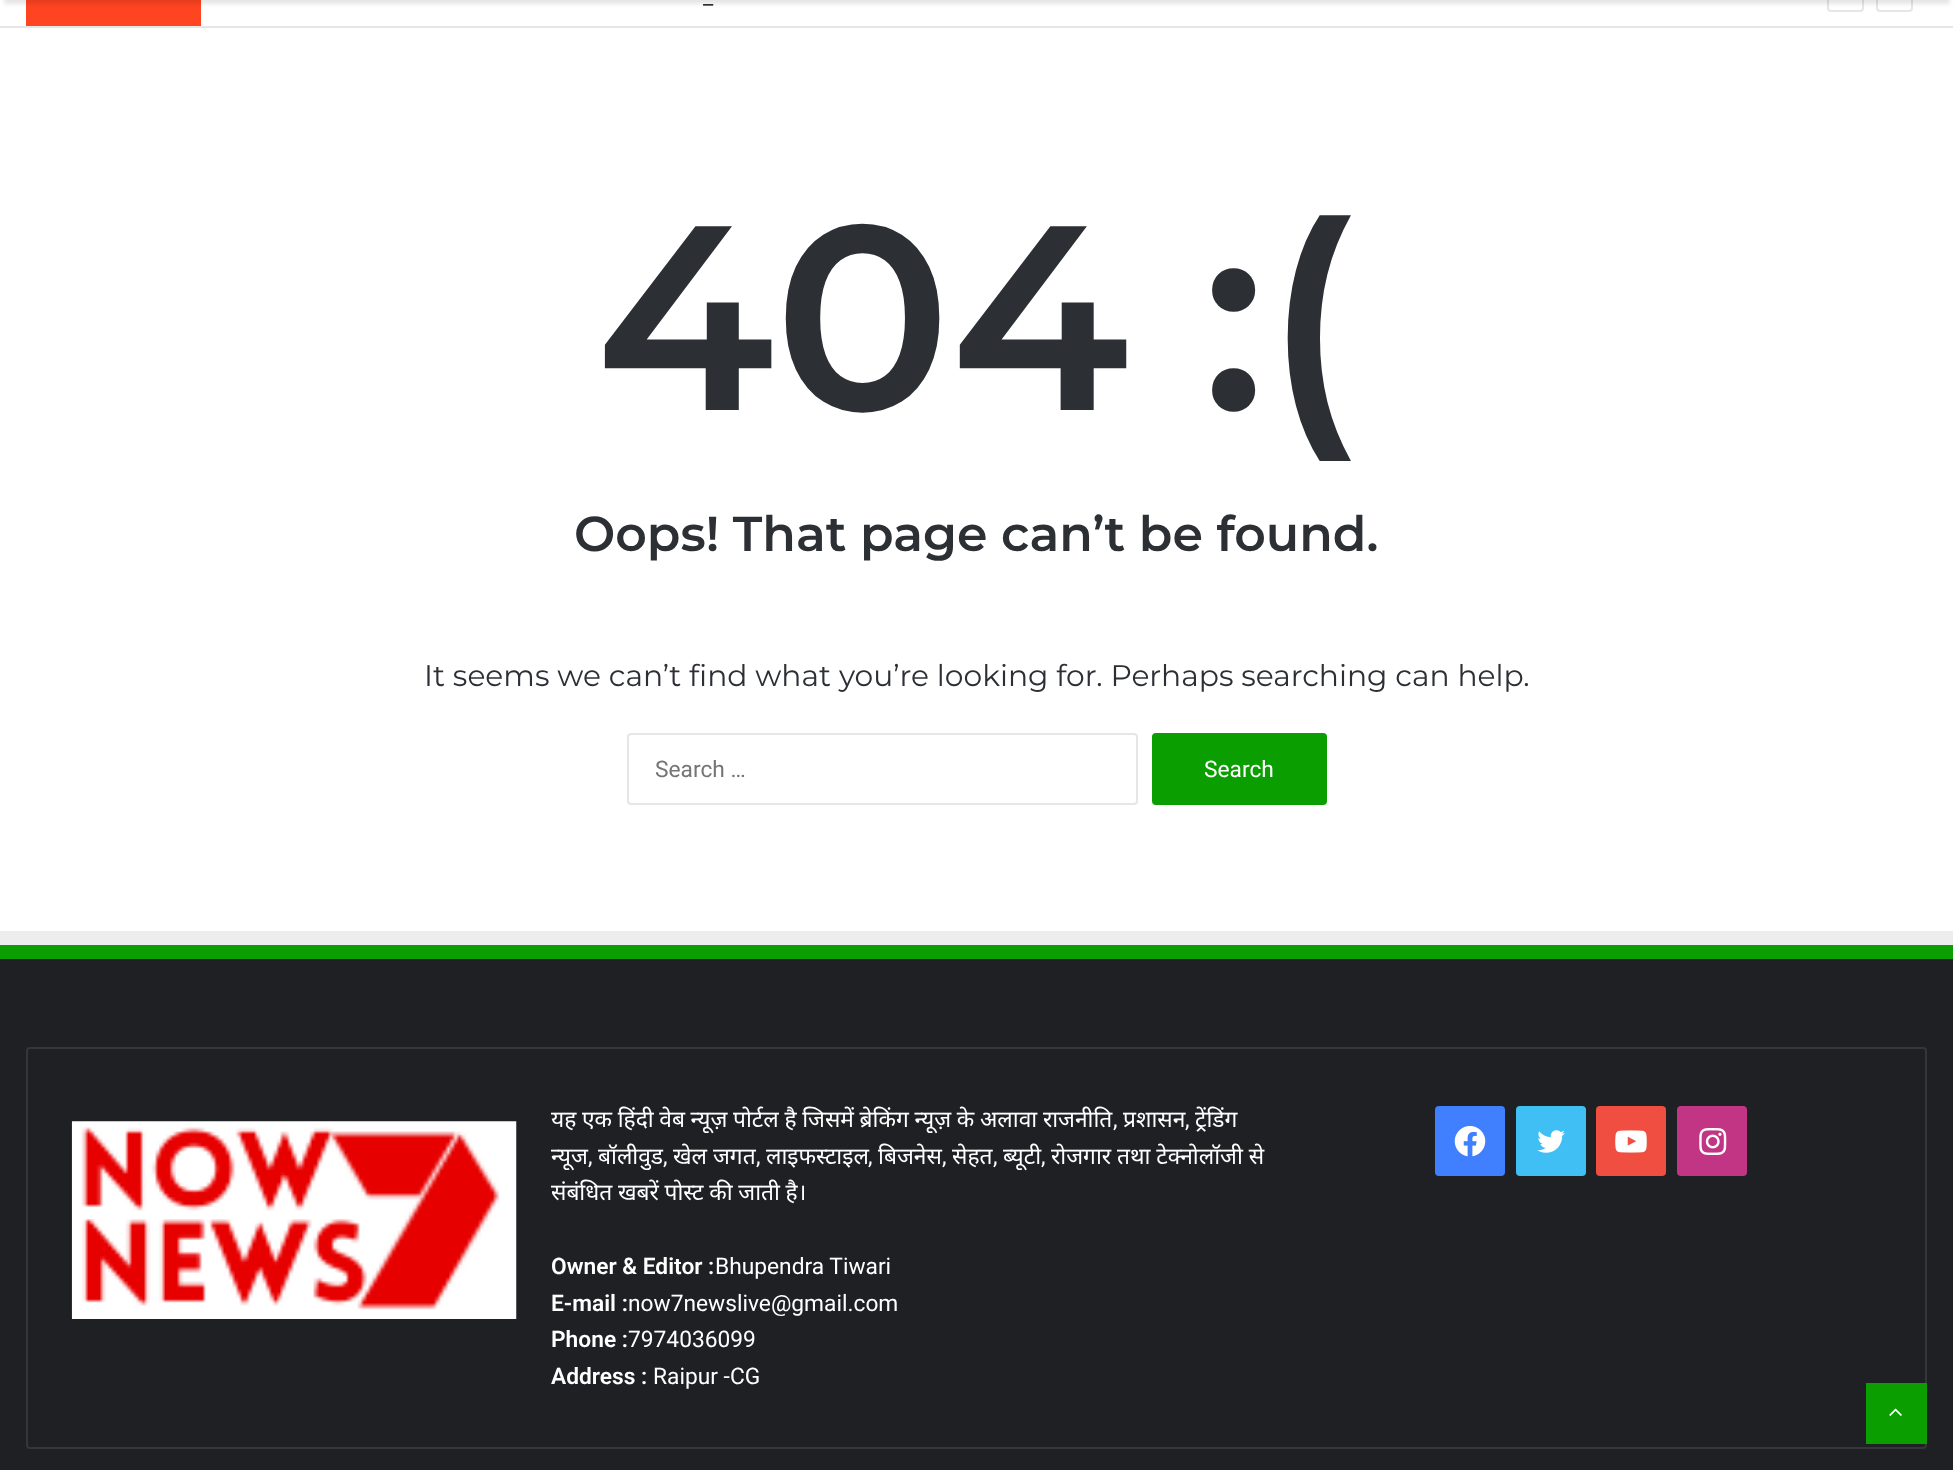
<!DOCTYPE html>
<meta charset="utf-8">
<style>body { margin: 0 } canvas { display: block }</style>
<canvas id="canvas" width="1953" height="1470"></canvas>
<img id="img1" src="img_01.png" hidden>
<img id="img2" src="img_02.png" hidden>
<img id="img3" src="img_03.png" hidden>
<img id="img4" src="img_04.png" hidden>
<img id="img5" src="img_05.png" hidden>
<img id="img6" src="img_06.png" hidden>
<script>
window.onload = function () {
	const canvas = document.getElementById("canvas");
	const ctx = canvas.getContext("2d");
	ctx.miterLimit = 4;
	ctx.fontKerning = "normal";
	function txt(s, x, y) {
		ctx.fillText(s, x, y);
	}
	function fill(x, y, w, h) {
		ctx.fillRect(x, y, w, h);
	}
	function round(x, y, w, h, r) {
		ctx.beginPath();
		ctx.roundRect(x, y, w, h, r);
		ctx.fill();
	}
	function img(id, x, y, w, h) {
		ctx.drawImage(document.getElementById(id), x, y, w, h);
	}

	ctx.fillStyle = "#FFFFFF";
	fill(0, 0, 1953, 1470);
	ctx.fillStyle = "#FF4422";
	fill(26, 0, 175, 26);
	ctx.beginPath();
	ctx.roundRect(1828, -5, 35, 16, 3);
	ctx.strokeStyle = "#E6E6E6";
	ctx.lineWidth = 2;
	ctx.stroke();
	ctx.beginPath();
	ctx.roundRect(1877, -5, 35, 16, 3);
	ctx.stroke();
	ctx.fillStyle = "rgba(0, 0, 0, 0.1)";
	ctx.filter = "blur(2px)";
	ctx.beginPath();
	ctx.rect(4, -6, 1946, 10);
	ctx.fill();
	ctx.filter = "none";
	ctx.fillStyle = "#E6E6E6";
	fill(0, 26, 1953, 2);
	ctx.beginPath();
	ctx.roundRect(628, 734, 509, 70, 3);
	ctx.stroke();
	ctx.fillStyle = "#0A9E01";
	round(1152, 733, 175, 72, 4);
	ctx.fillStyle = "#1F2024";
	fill(0, 959, 1953, 511);
	ctx.fillStyle = "#EDEDED";
	fill(0, 931, 1953, 14);
	ctx.fillStyle = "#0A9E01";
	fill(0, 945, 1953, 14);
	ctx.beginPath();
	ctx.roundRect(27, 1048, 1899, 400, 3);
	ctx.strokeStyle = "#35363A";
	ctx.stroke();
	img("img1", 71, 1121, 446, 198);
	ctx.fillStyle = "#4080FF";
	round(1435, 1106, 70, 70, 4);
	img("img2", 1454, 1126, 32, 31);
	ctx.fillStyle = "#40BFF5";
	round(1516, 1106, 70, 70, 4);
	img("img3", 1537, 1130, 28, 23);
	ctx.fillStyle = "#EF4E41";
	round(1596, 1106, 70, 70, 4);
	img("img4", 1615, 1130, 32, 23);
	ctx.fillStyle = "#C13584";
	round(1677, 1106, 70, 70, 4);
	img("img5", 1699, 1128, 28, 27);
	ctx.fillStyle = "#0A9E01";
	fill(1866, 1383, 61, 61);
	img("img6", 1889, 1408, 13, 8);
	ctx.font = "22.75px Roboto";
	ctx.fillStyle = "#2C2F34";
	txt("_", 703, 4);
	ctx.font = "600 262.5px Montserrat";
	txt("404 :(", 596, 410);
	ctx.font = "600 49px Montserrat";
	txt("Oops! That page can’t be found.", 574, 551);
	ctx.font = "29.75px Montserrat";
	txt("It seems we can’t find what you’re looking for. Perhaps searching can help.", 424, 686);
	ctx.font = "22.75px Roboto";
	ctx.fillStyle = "#757575";
	txt("Search …", 655, 777);
	ctx.fillStyle = "#FFFFFF";
	txt("Search", 1204, 777);
	ctx.wordSpacing = "-0.25px";
	ctx.font = "22.75px Noto Sans";
	txt("यह एक हिंदी वेब न्यूज़ पोर्टल है जिसमें ब्रेकिंग न्यूज़ के अलावा राजनीति", 551, 1127);
	ctx.wordSpacing = "0px";
	ctx.font = "22.75px Roboto";
	txt(",", 1113, 1127);
	ctx.font = "22.75px Noto Sans";
	txt("प्रशासन", 1123, 1127);
	ctx.font = "22.75px Roboto";
	txt(",", 1185, 1127);
	ctx.font = "22.75px Noto Sans";
	txt("ट्रेंडिंग", 1195, 1127);
	ctx.save();
	ctx.beginPath();
	ctx.rect(551, 1101, 716, 294);
	ctx.clip();
	txt("न्यूज", 551, 1164);
	ctx.restore();
	ctx.font = "22.75px Roboto";
	txt(",", 588, 1164);
	ctx.font = "22.75px Noto Sans";
	txt("बॉलीवुड", 598, 1164);
	txt("लाइफस्टाइल", 766, 1164);
	txt("बिजनेस", 878, 1164);
	txt("ब्यूटी", 1003, 1164);
	txt("रोजगार तथा टेक्नोलॉजी से", 1051, 1164);
	ctx.font = "22.75px Roboto";
	txt(",", 663, 1164);
	ctx.font = "22.75px Noto Sans";
	txt("खेल जगत", 673, 1164);
	ctx.font = "22.75px Roboto";
	txt(",", 756, 1164);
	txt(",", 868, 1164);
	txt(",", 942, 1164);
	ctx.font = "22.75px Noto Sans";
	txt("सेहत", 952, 1164);
	ctx.font = "22.75px Roboto";
	txt(",", 993, 1164);
	txt(",", 1041, 1164);
	ctx.save();
	ctx.beginPath();
	ctx.rect(551, 1101, 716, 294);
	ctx.clip();
	ctx.wordSpacing = "-0.25px";
	ctx.font = "22.75px Noto Sans";
	txt("संबंधित खबरें पोस्ट की जाती है।", 551, 1200);
	ctx.restore();
	ctx.font = "600 22.75px Roboto";
	txt("Owner & Editor :", 551, 1274);
	ctx.font = "22.75px Roboto";
	txt("Bhupendra Tiwari", 715, 1274);
	ctx.font = "600 22.75px Roboto";
	txt("E-mail :", 551, 1311);
	ctx.font = "22.75px Roboto";
	txt("now7newslive@gmail.com", 628, 1311);
	ctx.font = "600 22.75px Roboto";
	txt("Phone :", 551, 1347);
	ctx.font = "22.75px Roboto";
	txt("7974036099", 628, 1347);
	ctx.font = "600 22.75px Roboto";
	txt("Address :", 551, 1384);
	ctx.font = "22.75px Roboto";
	txt("Raipur -CG", 653, 1384);
};
</script>
